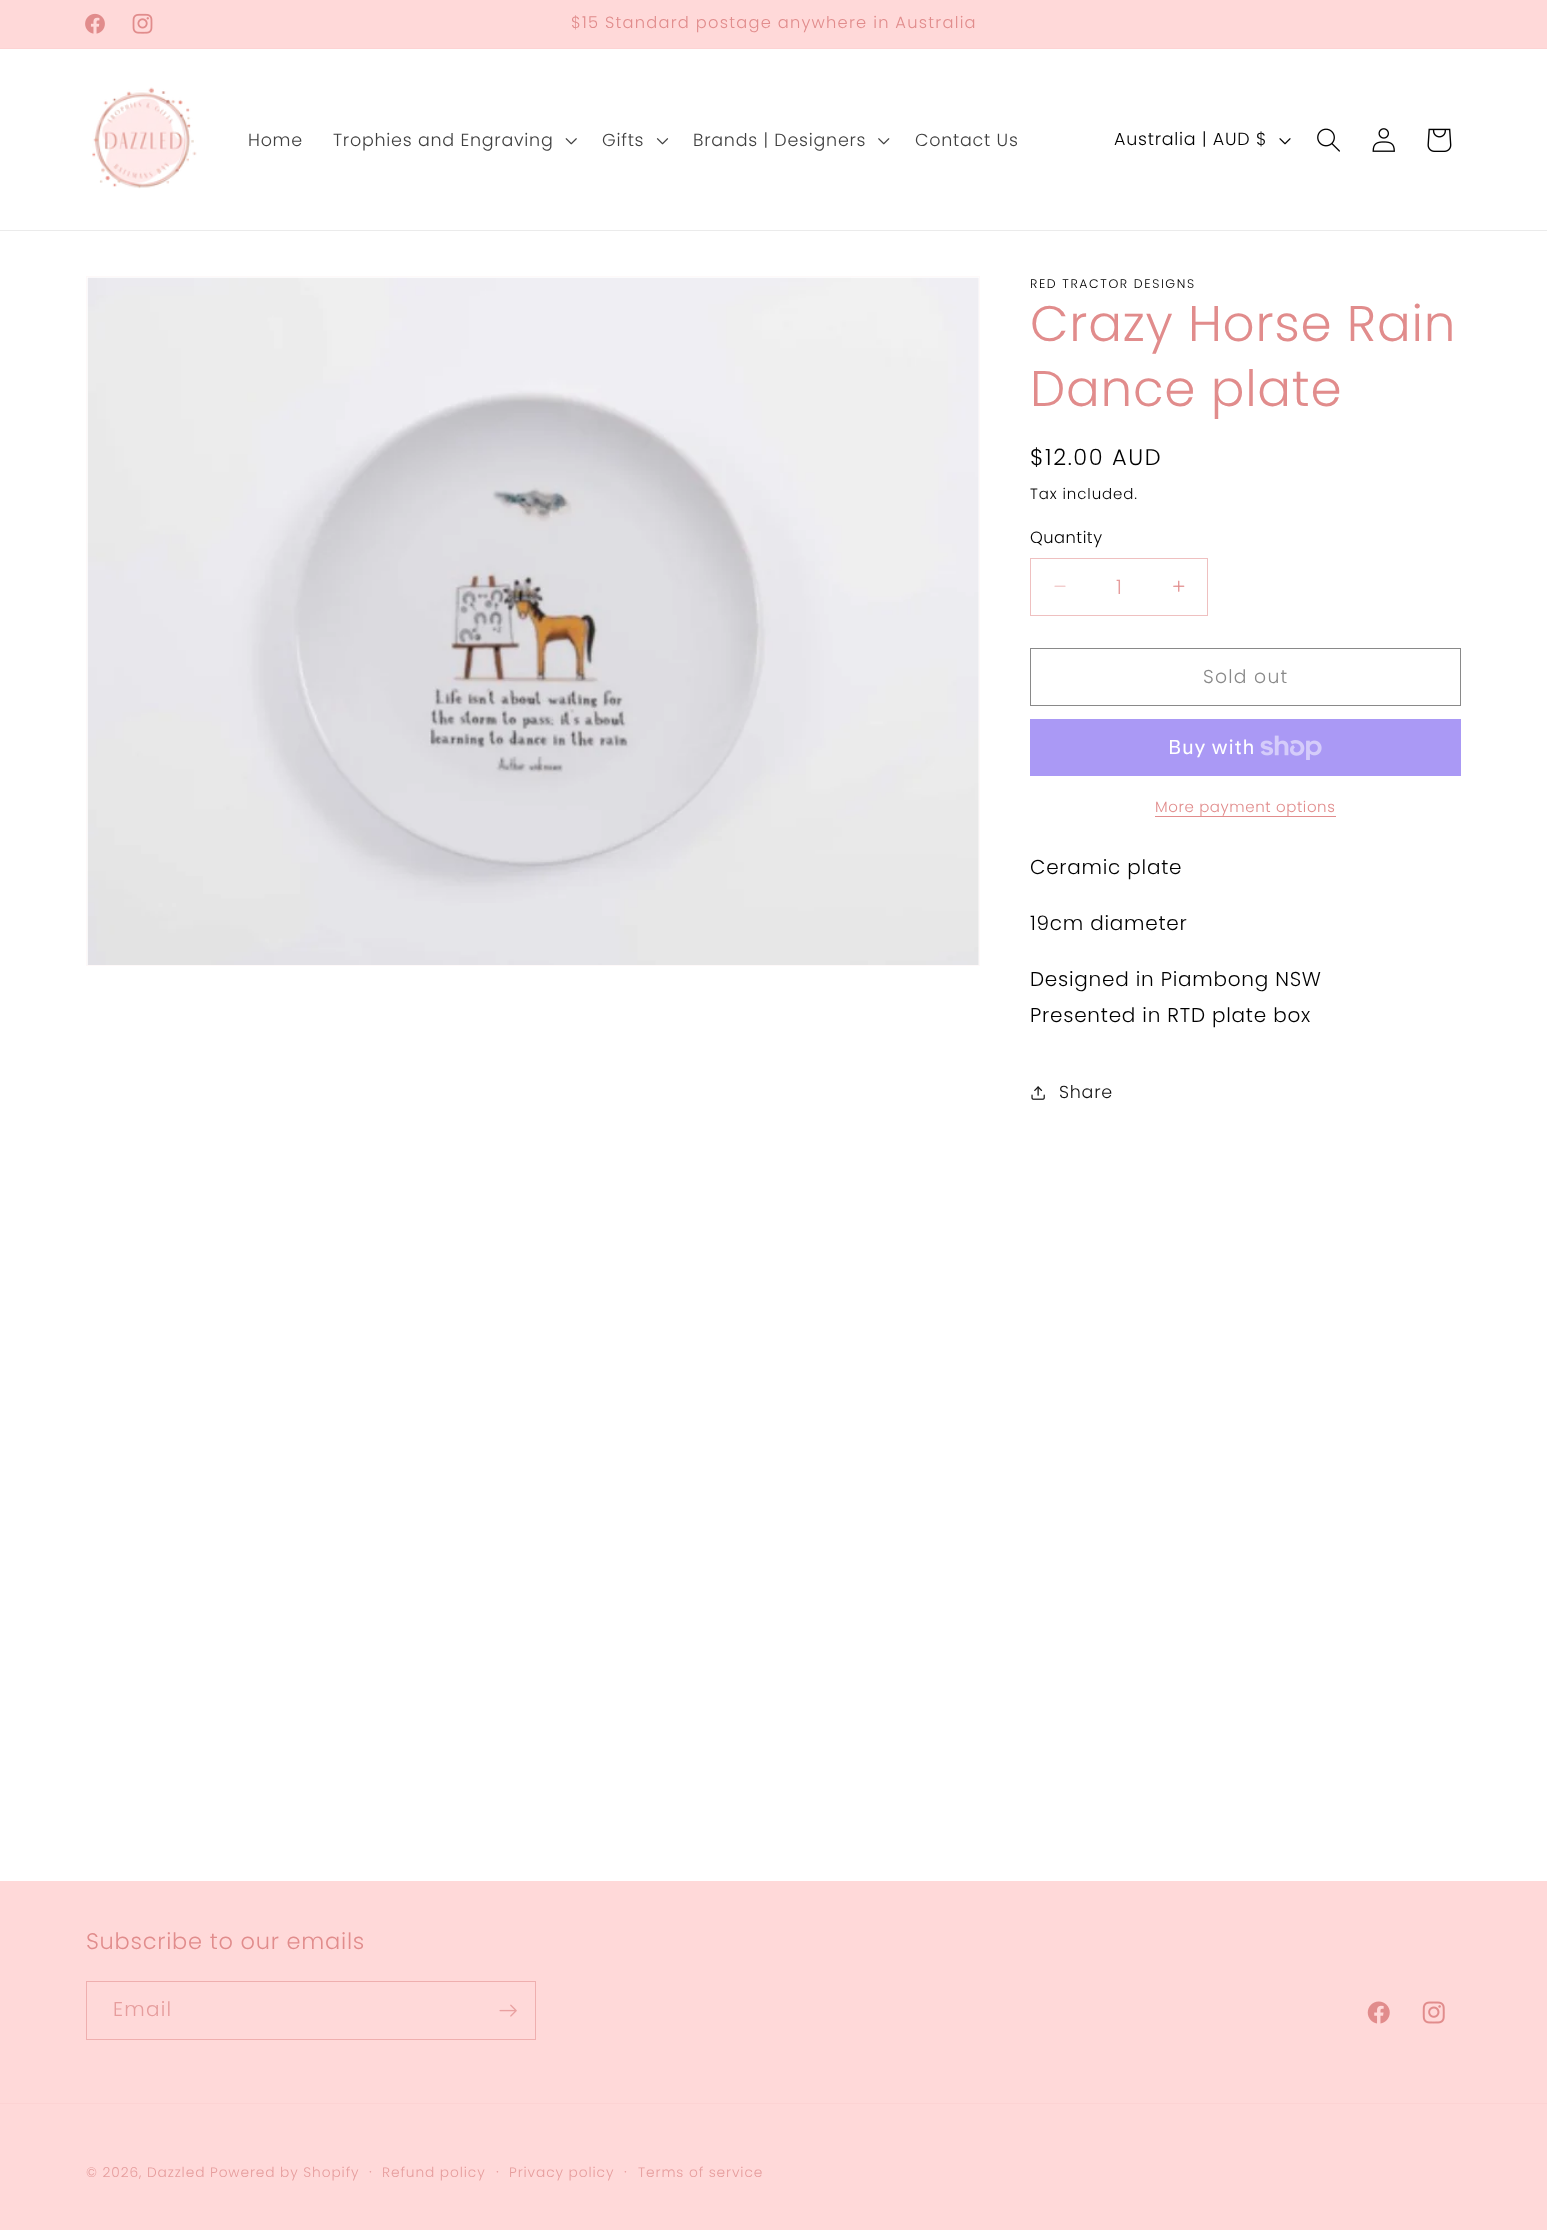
<!DOCTYPE html>
<meta charset="utf-8">
<style>body { margin: 0 } canvas { display: block }</style>
<canvas id="canvas" width="1547" height="2230"></canvas>
<img id="img1" src="img_01.png" hidden>
<img id="img2" src="img_02.png" hidden>
<img id="img3" src="img_03.png" hidden>
<img id="img4" src="img_04.png" hidden>
<img id="img5" src="img_05.png" hidden>
<img id="img6" src="img_06.png" hidden>
<img id="img7" src="img_07.png" hidden>
<img id="img8" src="img_08.png" hidden>
<img id="img9" src="img_09.png" hidden>
<img id="img10" src="img_10.png" hidden>
<img id="img11" src="img_11.png" hidden>
<img id="img12" src="img_12.png" hidden>
<img id="img13" src="img_13.png" hidden>
<img id="img14" src="img_14.png" hidden>
<img id="img15" src="img_15.png" hidden>
<img id="img16" src="img_16.png" hidden>
<img id="img17" src="img_17.png" hidden>
<img id="img18" src="img_18.png" hidden>
<script>
window.onload = function () {
	const canvas = document.getElementById("canvas");
	const ctx = canvas.getContext("2d");
	ctx.miterLimit = 4;
	ctx.fontKerning = "normal";
	function txt(s, x, y) {
		ctx.fillText(s, x, y);
	}
	function fill(x, y, w, h) {
		ctx.fillRect(x, y, w, h);
	}
	function img(id, x, y, w, h) {
		ctx.drawImage(document.getElementById(id), x, y, w, h);
	}

	ctx.fillStyle = "#FFFFFF";
	fill(0, 0, 1547, 2230);
	ctx.fillStyle = "#FFD9D9";
	fill(0, 0, 1547, 48);
	ctx.fillStyle = "#FDD3D3";
	fill(0, 48, 1547, 1);
	img("img1", 85, 13, 20, 21);
	img("img2", 132, 13, 21, 21);
	ctx.fillStyle = "#EBEBEB";
	fill(0, 230, 1547, 1);
	img("img3", 92, 87, 105, 102);
	img("img4", 565, 138, 12, 7);
	img("img5", 656, 138, 13, 7);
	img("img6", 878, 138, 12, 7);
	img("img7", 1279, 138, 12, 7);
	img("img8", 1317, 128, 23, 24);
	img("img9", 1372, 128, 23, 24);
	img("img10", 1427, 128, 25, 24);
	ctx.strokeStyle = "#FEF9F9";
	ctx.strokeRect(86.5, 276.5, 893, 689);
	img("img11", 87, 277, 892, 688);
	img("img12", 1054, 585, 12, 2);
	img("img13", 1173, 580, 12, 12);
	ctx.strokeStyle = "#EFC0C0";
	ctx.strokeRect(1030.5, 558.5, 177, 57);
	ctx.strokeStyle = "#898989";
	ctx.strokeRect(1030.5, 648.5, 430, 57);
	ctx.fillStyle = "#AA99F5";
	fill(1030, 719, 431, 57);
	img("img14", 1260, 735, 62, 25);
	ctx.fillStyle = "#E18C8C";
	fill(1155, 816, 181, 1);
	img("img15", 1031, 1086, 14, 14);
	ctx.fillStyle = "#FFD9D9";
	fill(0, 1881, 1547, 349);
	ctx.strokeStyle = "#EFAFAF";
	ctx.strokeRect(86.5, 1981.5, 449, 58);
	img("img16", 499, 2004, 18, 13);
	img("img17", 1367, 2001, 23, 23);
	img("img18", 1422, 2001, 23, 23);
	ctx.fillStyle = "#FDD3D3";
	fill(0, 2103, 1547, 1);
	ctx.letterSpacing = "1.25px";
	ctx.font = "300 16.25px Poppins";
	ctx.fillStyle = "#E18C8C";
	txt("$15 Standard postage anywhere in Australia", 571, 28);
	ctx.letterSpacing = "0.75px";
	ctx.font = "300 17.5px Poppins";
	ctx.fillStyle = "#404040";
	txt("Home", 248, 146);
	txt("Trophies and Engraving", 333, 146);
	txt("Gifts", 602, 146);
	txt("Brands | Designers", 693, 146);
	txt("Contact Us", 915, 146);
	ctx.fillStyle = "#000000";
	txt("Australia | AUD $", 1114, 145);
	ctx.letterSpacing = "1.6px";
	ctx.font = "300 12.5px Poppins";
	txt("RED TRACTOR DESIGNS", 1030, 288);
	ctx.letterSpacing = "0.75px";
	ctx.font = "300 50px Poppins";
	ctx.fillStyle = "#E18C8C";
	txt("Crazy Horse Rain", 1030, 341);
	txt("Dance plate", 1030, 406);
	ctx.letterSpacing = "1.6px";
	ctx.font = "300 22.5px Poppins";
	ctx.fillStyle = "#000000";
	txt("$12.00 AUD", 1030, 465);
	ctx.letterSpacing = "0.9px";
	ctx.font = "300 15px Poppins";
	txt("Tax included.", 1030, 499);
	ctx.letterSpacing = "0.5px";
	ctx.font = "300 16.25px Poppins";
	txt("Quantity", 1030, 543);
	ctx.letterSpacing = "0px";
	ctx.font = "300 20px Poppins";
	ctx.fillStyle = "#E69D9D";
	txt("1", 1116, 594);
	ctx.letterSpacing = "1.25px";
	ctx.font = "300 18.75px Poppins";
	ctx.fillStyle = "#898989";
	txt("Sold out", 1203, 683);
	ctx.letterSpacing = "0.75px";
	ctx.font = "20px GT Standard";
	ctx.fillStyle = "#FFFFFF";
	txt("Buy with", 1168, 754);
	ctx.letterSpacing = "0.6px";
	ctx.font = "300 15px Poppins";
	ctx.fillStyle = "#E18C8C";
	txt("More payment options", 1155, 812);
	ctx.letterSpacing = "0.75px";
	ctx.font = "300 20px Poppins";
	ctx.fillStyle = "#000000";
	txt("Ceramic plate", 1030, 874);
	txt("19cm diameter", 1030, 930);
	txt("Designed in Piambong NSW", 1030, 986);
	txt("Presented in RTD plate box", 1030, 1022);
	ctx.font = "300 17.5px Poppins";
	ctx.fillStyle = "#121212";
	txt("Share", 1059, 1098);
	ctx.font = "300 22.5px Poppins";
	ctx.fillStyle = "#E18C8C";
	txt("Subscribe to our emails", 86, 1949);
	ctx.letterSpacing = "1.25px";
	ctx.font = "300 20px Poppins";
	ctx.fillStyle = "#E69D9D";
	txt("Email", 113, 2016);
	ctx.letterSpacing = "0.9px";
	ctx.font = "300 13.75px Poppins";
	txt("© 2026, Dazzled Powered by Shopify", 86, 2177);
	ctx.font = "300 15px Poppins";
	txt("·", 369, 2177);
	ctx.font = "300 13.75px Poppins";
	txt("Refund policy", 382, 2177);
	ctx.font = "300 15px Poppins";
	txt("·", 496, 2177);
	ctx.font = "300 13.75px Poppins";
	txt("Privacy policy", 509, 2177);
	ctx.font = "300 15px Poppins";
	txt("·", 624, 2177);
	ctx.font = "300 13.75px Poppins";
	txt("Terms of service", 638, 2177);
};
</script>
